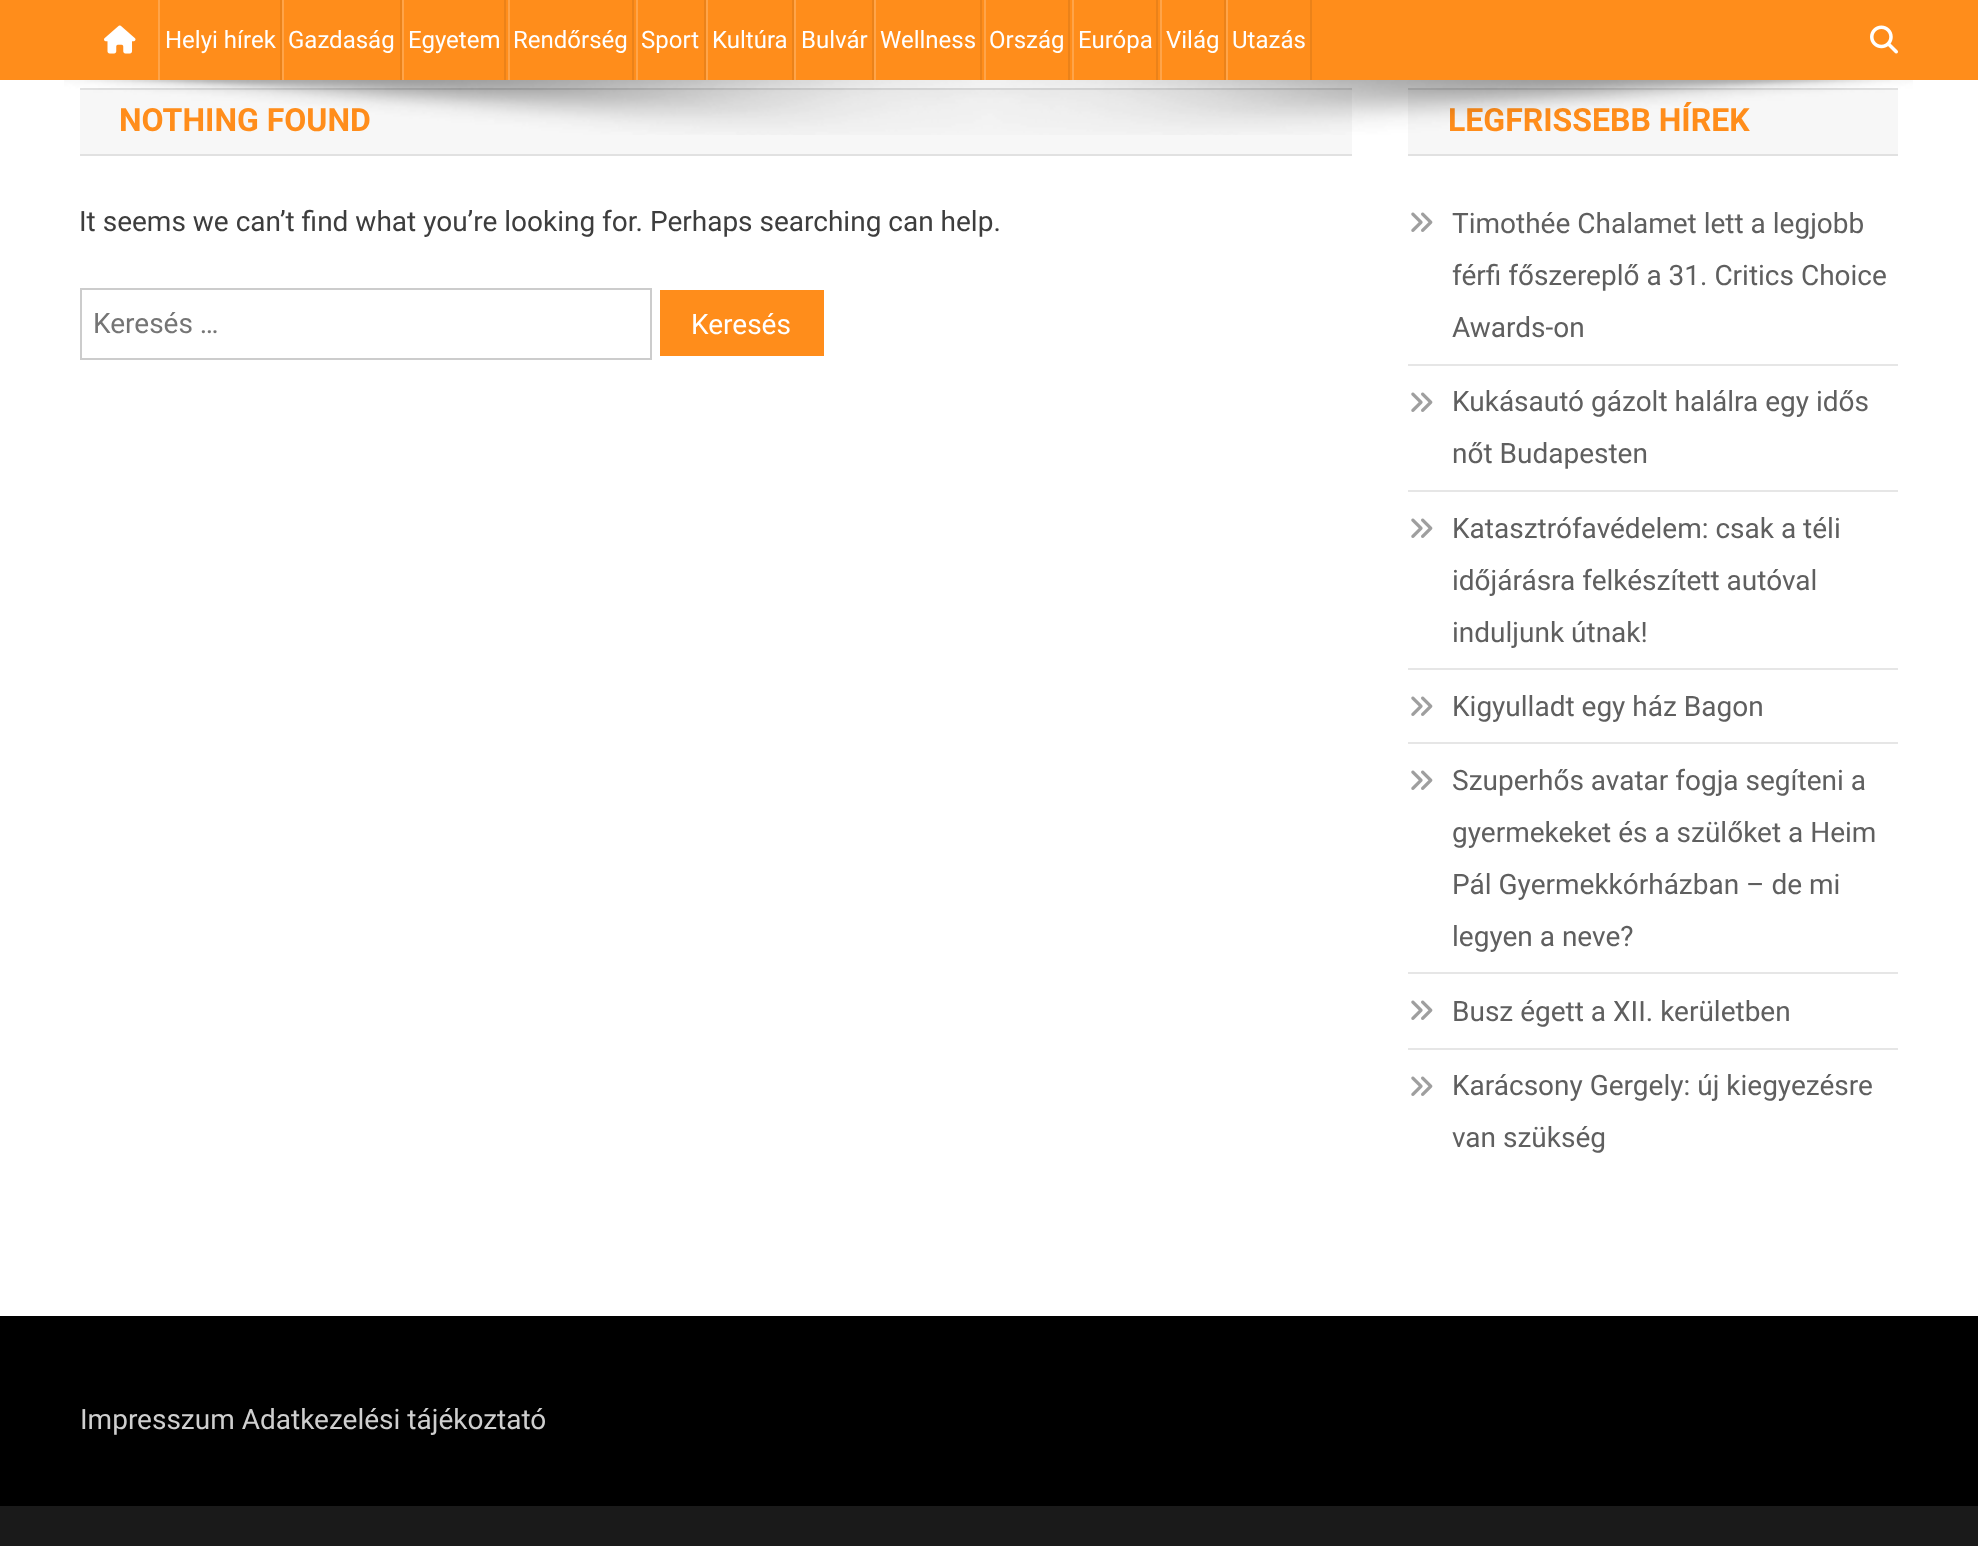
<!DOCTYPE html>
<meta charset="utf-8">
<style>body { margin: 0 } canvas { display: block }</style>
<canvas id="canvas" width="1978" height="1546"></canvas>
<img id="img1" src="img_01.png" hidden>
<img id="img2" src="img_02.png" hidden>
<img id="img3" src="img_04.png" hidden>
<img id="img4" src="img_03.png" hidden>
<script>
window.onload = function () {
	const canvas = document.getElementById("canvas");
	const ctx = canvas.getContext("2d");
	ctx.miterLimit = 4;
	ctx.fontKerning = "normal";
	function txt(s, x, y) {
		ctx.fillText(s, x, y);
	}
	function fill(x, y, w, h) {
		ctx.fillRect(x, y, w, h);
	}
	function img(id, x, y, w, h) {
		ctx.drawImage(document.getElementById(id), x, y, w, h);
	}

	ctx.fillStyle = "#FFFFFF";
	fill(0, 0, 1978, 1546);
	ctx.fillStyle = "#FF8D1B";
	fill(0, 0, 1978, 80);
	img("img1", 104, 25, 32, 29);
	ctx.fillStyle = "#EB8219";
	fill(280, 0, 2, 80);
	ctx.fillStyle = "#FFA449";
	fill(158, 0, 2, 80);
	ctx.fillStyle = "#EB8219";
	fill(400, 0, 2, 80);
	ctx.fillStyle = "#FFA449";
	fill(282, 0, 2, 80);
	ctx.fillStyle = "#EB8219";
	fill(504, 0, 2, 80);
	ctx.fillStyle = "#FFA449";
	fill(402, 0, 2, 80);
	ctx.fillStyle = "#EB8219";
	fill(632, 0, 2, 80);
	ctx.fillStyle = "#FFA449";
	fill(508, 0, 2, 80);
	ctx.fillStyle = "#EB8219";
	fill(704, 0, 2, 80);
	ctx.fillStyle = "#FFA449";
	fill(636, 0, 2, 80);
	ctx.fillStyle = "#EB8219";
	fill(792, 0, 2, 80);
	ctx.fillStyle = "#FFA449";
	fill(706, 0, 2, 80);
	ctx.fillStyle = "#EB8219";
	fill(872, 0, 2, 80);
	ctx.fillStyle = "#FFA449";
	fill(794, 0, 2, 80);
	ctx.fillStyle = "#EB8219";
	fill(980, 0, 2, 80);
	ctx.fillStyle = "#FFA449";
	fill(874, 0, 2, 80);
	ctx.fillStyle = "#EB8219";
	fill(1068, 0, 2, 80);
	ctx.fillStyle = "#FFA449";
	fill(984, 0, 2, 80);
	ctx.fillStyle = "#EB8219";
	fill(1156, 0, 2, 80);
	ctx.fillStyle = "#FFA449";
	fill(1072, 0, 2, 80);
	ctx.fillStyle = "#EB8219";
	fill(1224, 0, 2, 80);
	ctx.fillStyle = "#FFA449";
	fill(1160, 0, 2, 80);
	ctx.fillStyle = "#EB8219";
	fill(1310, 0, 2, 80);
	ctx.fillStyle = "#FFA449";
	fill(1226, 0, 2, 80);
	img("img2", 1870, 25, 28, 29);
	ctx.fillStyle = "#F7F7F7";
	fill(80, 90, 1272, 64);
	ctx.fillStyle = "#E1E1E1";
	fill(80, 88, 1272, 2);
	fill(80, 154, 1272, 2);
	ctx.strokeStyle = "#CCCCCC";
	ctx.lineWidth = 2;
	ctx.strokeRect(81, 289, 570, 70);
	ctx.fillStyle = "#FF8D1B";
	fill(660, 290, 164, 66);
	ctx.fillStyle = "#F7F7F7";
	fill(1408, 90, 490, 64);
	ctx.fillStyle = "#E1E1E1";
	fill(1408, 88, 490, 2);
	fill(1408, 154, 490, 2);
	ctx.fillStyle = "#E6E6E6";
	fill(1408, 364, 490, 2);
	img("img3", 1411, 212, 22, 20);
	fill(1408, 490, 490, 2);
	img("img3", 1411, 392, 22, 20);
	fill(1408, 668, 490, 2);
	img("img3", 1411, 518, 22, 20);
	fill(1408, 742, 490, 2);
	img("img3", 1411, 696, 22, 20);
	fill(1408, 972, 490, 2);
	img("img3", 1411, 770, 22, 20);
	fill(1408, 1048, 490, 2);
	img("img3", 1411, 1000, 22, 20);
	img("img3", 1411, 1076, 22, 20);
	ctx.fillStyle = "#000000";
	fill(0, 1316, 1978, 190);
	ctx.fillStyle = "#1A1A1A";
	fill(0, 1506, 1978, 40);
	ctx.font = "24px Roboto";
	ctx.fillStyle = "#FFFFFF";
	txt("Helyi hírek", 165, 48);
	txt("Gazdaság", 288, 48);
	txt("Egyetem", 408, 48);
	txt("Rendőrség", 513, 48);
	txt("Sport", 641, 48);
	txt("Kultúra", 712, 48);
	txt("Bulvár", 801, 48);
	txt("Wellness", 880, 48);
	txt("Ország", 989, 48);
	txt("Európa", 1078, 48);
	txt("Világ", 1166, 48);
	txt("Utazás", 1232, 48);
	ctx.font = "bold 32px Roboto";
	ctx.fillStyle = "#FF8D1B";
	txt("NOTHING FOUND", 119, 131);
	ctx.font = "28px Roboto";
	ctx.fillStyle = "#3D3D3D";
	txt("It seems we can’t find what you’re looking for. Perhaps searching can help.", 79, 231);
	ctx.fillStyle = "#757575";
	txt("Keresés …", 93, 333);
	ctx.fillStyle = "#FFFFFF";
	txt("Keresés", 691, 334);
	ctx.font = "bold 32px Roboto";
	ctx.fillStyle = "#FF8D1B";
	txt("LEGFRISSEBB HÍREK", 1448, 131);
	img("img4", 64, 80, 1849, 55);
	ctx.font = "28px Roboto";
	ctx.fillStyle = "#5F5F5F";
	txt("Timothée Chalamet lett a legjobb", 1452, 233);
	txt("férfi főszereplő a 31. Critics Choice", 1452, 285);
	txt("Awards-on", 1452, 337);
	txt("Kukásautó gázolt halálra egy idős", 1452, 411);
	txt("nőt Budapesten", 1452, 463);
	txt("Katasztrófavédelem: csak a téli", 1452, 538);
	txt("időjárásra felkészített autóval", 1452, 590);
	txt("induljunk útnak!", 1452, 642);
	txt("Kigyulladt egy ház Bagon", 1452, 716);
	txt("Szuperhős avatar fogja segíteni a", 1452, 790);
	txt("gyermekeket és a szülőket a Heim", 1452, 842);
	txt("Pál Gyermekkórházban – de mi", 1452, 894);
	txt("legyen a neve?", 1452, 946);
	txt("Busz égett a XII. kerületben", 1452, 1021);
	txt("Karácsony Gergely: új kiegyezésre", 1452, 1095);
	txt("van szükség", 1452, 1147);
	ctx.fillStyle = "#CFCFCF";
	txt("Impresszum Adatkezelési tájékoztató", 80, 1429);
};
</script>
